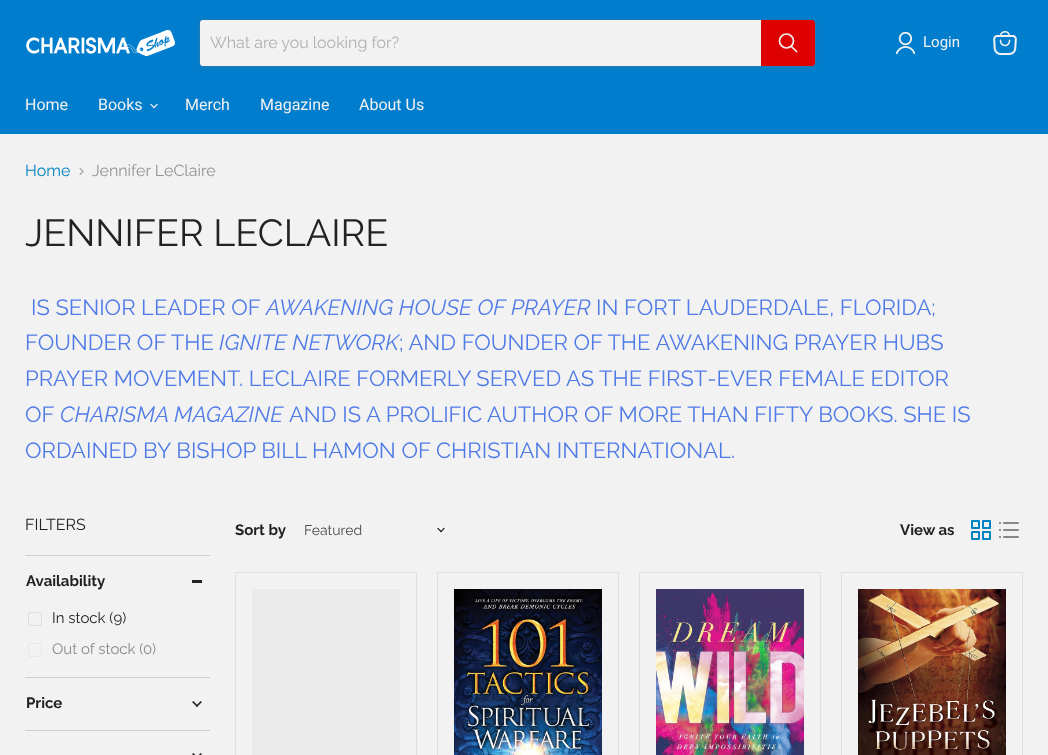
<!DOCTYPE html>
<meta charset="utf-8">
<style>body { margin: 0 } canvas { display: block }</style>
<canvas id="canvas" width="1048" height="755"></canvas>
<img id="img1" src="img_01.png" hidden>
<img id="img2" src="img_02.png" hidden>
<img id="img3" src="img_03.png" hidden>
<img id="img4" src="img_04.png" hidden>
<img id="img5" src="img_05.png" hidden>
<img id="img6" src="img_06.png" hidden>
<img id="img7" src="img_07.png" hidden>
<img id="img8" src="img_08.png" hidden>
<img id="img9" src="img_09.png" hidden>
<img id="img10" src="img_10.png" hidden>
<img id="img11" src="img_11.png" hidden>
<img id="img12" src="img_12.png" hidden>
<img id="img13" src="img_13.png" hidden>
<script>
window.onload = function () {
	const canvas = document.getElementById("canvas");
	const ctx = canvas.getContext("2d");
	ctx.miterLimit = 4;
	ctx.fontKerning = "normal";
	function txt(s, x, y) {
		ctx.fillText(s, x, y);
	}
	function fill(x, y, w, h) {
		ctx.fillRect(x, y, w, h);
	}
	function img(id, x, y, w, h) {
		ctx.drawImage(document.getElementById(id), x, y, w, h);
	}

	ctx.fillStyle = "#F2F2F2";
	fill(0, 0, 1048, 755);
	ctx.fillStyle = "#007DCC";
	fill(0, 0, 1048, 134);
	img("img1", 26, 30, 149, 26);
	ctx.fillStyle = "rgba(121, 121, 121, 0.11)";
	ctx.filter = "blur(1.5px)";
	ctx.beginPath();
	ctx.roundRect(199, 21, 617, 48, 4);
	ctx.fill();
	ctx.filter = "none";
	ctx.beginPath();
	ctx.roundRect(199.5, 19.5, 616, 47, 3.5);
	ctx.strokeStyle = "rgba(121, 121, 121, 0.2)";
	ctx.stroke();
	ctx.fillStyle = "#F2F2F2";
	ctx.beginPath();
	ctx.roundRect(200, 20, 561, 46, [3, 0, 0, 3]);
	ctx.fill();
	ctx.fillStyle = "#DE0101";
	ctx.beginPath();
	ctx.roundRect(761.5, 20.5, 53, 45, [0, 2.5, 2.5, 0]);
	ctx.fill();
	ctx.strokeStyle = "#DE0101";
	ctx.stroke();
	ctx.beginPath();
	ctx.moveTo(796.5, 51.5);
	ctx.lineTo(791.5, 46.5);
	ctx.strokeStyle = "#F2F2F2";
	ctx.lineWidth = 1.7;
	ctx.lineCap = "round";
	ctx.stroke();
	ctx.beginPath();
	ctx.arc(786.5, 41, 7, 0, Math.PI * 2);
	ctx.stroke();
	img("img2", 895, 31, 20, 24);
	img("img3", 993, 31, 24, 24);
	img("img4", 150, 103, 8, 6);
	img("img5", 79, 168, 5, 7);
	ctx.fillStyle = "#CECECE";
	fill(25, 555, 185, 1);
	ctx.fillStyle = "#222222";
	fill(192, 580, 10, 3);
	ctx.beginPath();
	ctx.roundRect(28.5, 612.5, 13, 13, 1.5);
	ctx.strokeStyle = "#DDDDDD";
	ctx.lineWidth = 1;
	ctx.stroke();
	ctx.beginPath();
	ctx.roundRect(28.5, 643.5, 13, 13, 1.5);
	ctx.strokeStyle = "#E8E8E8";
	ctx.stroke();
	ctx.fillStyle = "#CECECE";
	fill(25, 677, 185, 1);
	img("img6", 192, 701, 10, 6);
	fill(25, 730, 185, 1);
	img("img7", 192, 753, 10, 2);
	img("img8", 437, 527, 8, 6);
	img("img9", 971, 520, 20, 20);
	img("img10", 999, 522, 20, 16);
	ctx.strokeStyle = "#DFDFDF";
	ctx.strokeRect(235.5, 572.5, 181, 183);
	ctx.fillStyle = "#EAEAEA";
	fill(252, 589, 148, 166);
	ctx.strokeRect(437.5, 572.5, 181, 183);
	img("img11", 454, 589, 148, 166);
	ctx.strokeRect(639.5, 572.5, 181, 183);
	img("img12", 656, 589, 148, 166);
	ctx.strokeRect(841.5, 572.5, 181, 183);
	img("img13", 858, 589, 148, 166);
	ctx.font = "16px Raleway";
	ctx.fillStyle = "#B0B0B0";
	txt("What are you looking for?", 210, 48);
	ctx.font = "15px Roboto";
	ctx.fillStyle = "#F2F2F2";
	txt("Login", 923, 47);
	ctx.font = "16px Roboto";
	txt("Home", 25, 110);
	txt("Books", 98, 110);
	txt("Merch", 185, 110);
	txt("Magazine", 260, 110);
	txt("About Us", 359, 110);
	ctx.font = "16px Raleway";
	ctx.fillStyle = "#0084C2";
	txt("Home", 25, 176);
	ctx.fillStyle = "#949494";
	txt("Jennifer LeClaire", 92, 176);
	ctx.font = "37.75px Raleway";
	ctx.fillStyle = "#222222";
	txt("JENNIFER LECLAIRE", 25, 246);
	ctx.font = "22px Raleway";
	ctx.fillStyle = "#507BE7";
	txt("IS SENIOR LEADER OF", 31, 315);
	ctx.font = "italic 22px Raleway";
	txt("AWAKENING HOUSE OF PRAYER", 266, 315);
	ctx.font = "22px Raleway";
	txt("IN FORT LAUDERDALE, FLORIDA;", 596, 315);
	txt("FOUNDER OF THE", 25, 350);
	ctx.font = "italic 22px Raleway";
	txt("IGNITE NETWORK", 219, 350);
	ctx.font = "22px Raleway";
	txt("; AND FOUNDER OF THE AWAKENING PRAYER HUBS", 399, 350);
	txt("PRAYER MOVEMENT. LECLAIRE FORMERLY SERVED AS THE FIRST‐EVER FEMALE EDITOR", 25, 386);
	txt("OF", 25, 422);
	ctx.font = "italic 22px Raleway";
	txt("CHARISMA MAGAZINE", 60, 422);
	ctx.font = "22px Raleway";
	txt("AND IS A PROLIFIC AUTHOR OF MORE THAN FIFTY BOOKS. SHE IS", 289, 422);
	txt("ORDAINED BY BISHOP BILL HAMON OF CHRISTIAN INTERNATIONAL.", 25, 458);
	ctx.font = "16px Raleway";
	ctx.fillStyle = "#222222";
	txt("FILTERS", 25, 530);
	ctx.font = "bold 15px Raleway";
	txt("Availability", 26, 586);
	ctx.font = "15px Raleway";
	txt("In stock (9)", 52, 623);
	ctx.fillStyle = "#8A8A8A";
	txt("Out of stock (0)", 52, 654);
	ctx.font = "bold 15px Raleway";
	ctx.fillStyle = "#222222";
	txt("Price", 26, 708);
	txt("Sort by", 235, 535);
	ctx.font = "14px Raleway";
	ctx.fillStyle = "#4D4D4D";
	txt("Featured", 304, 535);
	ctx.font = "bold 15px Raleway";
	ctx.fillStyle = "#222222";
	txt("View as", 900, 535);
};
</script>
